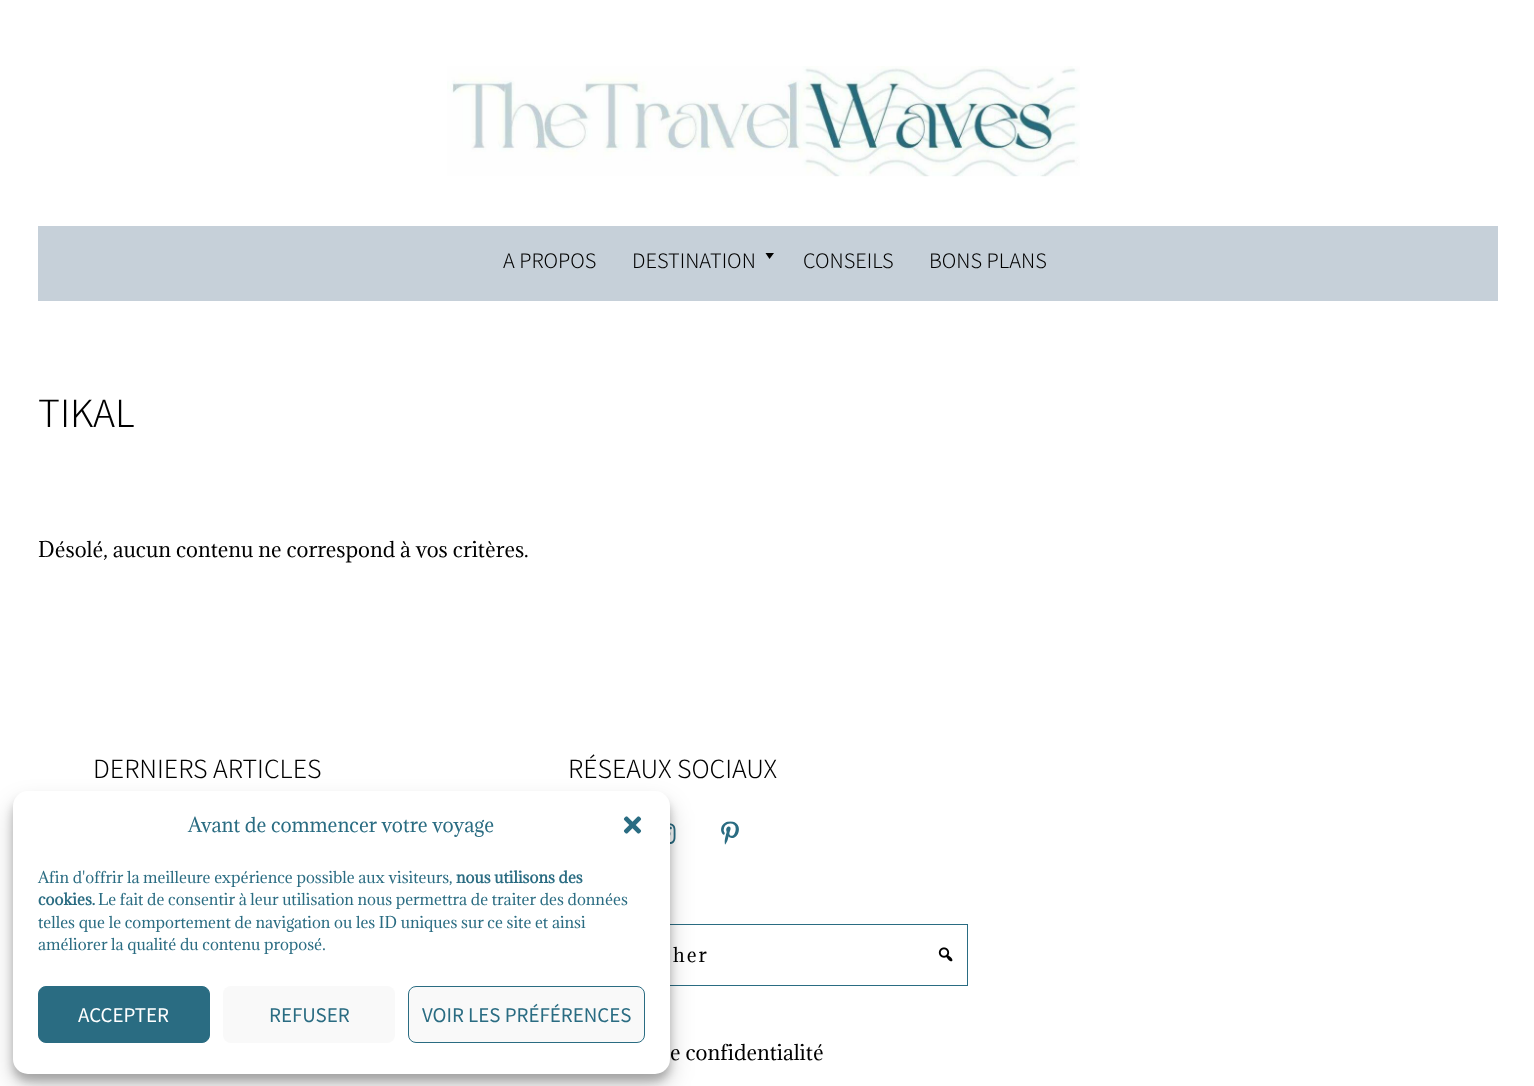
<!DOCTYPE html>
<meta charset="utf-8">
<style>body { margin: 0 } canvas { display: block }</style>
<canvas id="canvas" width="1534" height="1086"></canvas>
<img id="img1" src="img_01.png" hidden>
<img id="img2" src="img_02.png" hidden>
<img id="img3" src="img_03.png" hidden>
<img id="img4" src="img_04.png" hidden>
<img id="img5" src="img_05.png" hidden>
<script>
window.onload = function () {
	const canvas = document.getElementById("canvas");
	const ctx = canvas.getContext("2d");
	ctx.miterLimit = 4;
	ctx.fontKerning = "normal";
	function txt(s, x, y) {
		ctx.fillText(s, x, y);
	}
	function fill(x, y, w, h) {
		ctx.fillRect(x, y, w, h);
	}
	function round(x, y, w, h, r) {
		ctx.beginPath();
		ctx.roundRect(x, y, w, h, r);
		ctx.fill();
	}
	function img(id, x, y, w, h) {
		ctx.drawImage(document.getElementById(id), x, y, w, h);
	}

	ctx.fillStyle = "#FFFFFF";
	fill(0, 0, 1534, 1086);
	img("img1", 447, 66, 633, 111);
	ctx.fillStyle = "#C6D0D9";
	fill(38, 226, 1460, 75);
	ctx.fillStyle = "#000000";
	ctx.beginPath();
	ctx.moveTo(774, 253);
	ctx.lineTo(769.5, 259);
	ctx.lineTo(765.5, 253);
	ctx.closePath();
	ctx.fill();
	img("img2", 670, 823, 6, 21);
	img("img3", 721, 821, 18, 24);
	ctx.strokeStyle = "#2A6C82";
	ctx.strokeRect(568.5, 924.5, 399, 61);
	img("img4", 938, 947, 15, 15);
	ctx.fillStyle = "rgba(0, 0, 0, 0.23)";
	ctx.filter = "blur(4px)";
	ctx.beginPath();
	ctx.roundRect(13, 799, 657, 282, 15);
	ctx.fill();
	ctx.filter = "none";
	ctx.fillStyle = "rgba(0, 0, 0, 0.19)";
	ctx.filter = "blur(12.5px)";
	ctx.beginPath();
	ctx.roundRect(13, 804, 657, 282, 15);
	ctx.fill();
	ctx.filter = "none";
	ctx.fillStyle = "#FFFFFF";
	round(13, 791, 657, 283, 15);
	img("img5", 623, 816, 19, 18);
	ctx.fillStyle = "#2A6C82";
	ctx.beginPath();
	ctx.roundRect(38.5, 986.5, 171, 56, 7.5);
	ctx.fill();
	ctx.stroke();
	ctx.fillStyle = "#F9F9F9";
	round(223, 986, 172, 57, 8);
	ctx.beginPath();
	ctx.roundRect(408.5, 986.5, 236, 56, 7.5);
	ctx.fill();
	ctx.stroke();
	ctx.font = "300 20px Noto Sans JP";
	ctx.fillStyle = "#000000";
	txt("A PROPOS", 503, 268);
	txt("DESTINATION", 632, 268);
	txt("CONSEILS", 803, 268);
	txt("BONS PLANS", 929, 268);
	ctx.font = "300 37.5px Noto Sans JP";
	txt("TIKAL", 38, 427);
	ctx.font = "20px Adamina";
	txt("Désolé, aucun contenu ne correspond à vos critères.", 38, 557);
	ctx.font = "300 25px Noto Sans JP";
	txt("DERNIERS ARTICLES", 93, 778);
	txt("RÉSEAUX SOCIAUX", 568, 778);
	ctx.letterSpacing = "2px";
	ctx.font = "18.75px Adamina";
	txt("her", 673, 962);
	ctx.letterSpacing = "0px";
	ctx.font = "20px Adamina";
	txt("e confidentialité", 670, 1060);
	ctx.font = "18.75px Adamina";
	ctx.fillStyle = "#2A6C82";
	txt("Avant de commencer votre voyage", 188, 832);
	ctx.font = "15px Adamina";
	txt("Afin d'offrir la meilleure expérience possible aux visiteurs,", 38, 883);
	ctx.font = "bold 15px Adamina";
	txt("nous utilisons des", 456, 883);
	txt("cookies.", 38, 905);
	ctx.font = "15px Adamina";
	txt("Le fait de consentir à leur utilisation nous permettra de traiter des données", 98, 905);
	txt("telles que le comportement de navigation ou les ID uniques sur ce site et ainsi", 38, 928);
	txt("améliorer la qualité du contenu proposé.", 38, 950);
	ctx.font = "18.75px Noto Sans JP";
	ctx.fillStyle = "#FFFFFF";
	txt("ACCEPTER", 78, 1022);
	ctx.fillStyle = "#2A6C82";
	txt("REFUSER", 269, 1022);
	txt("VOIR LES PRÉFÉRENCES", 422, 1022);
};
</script>
